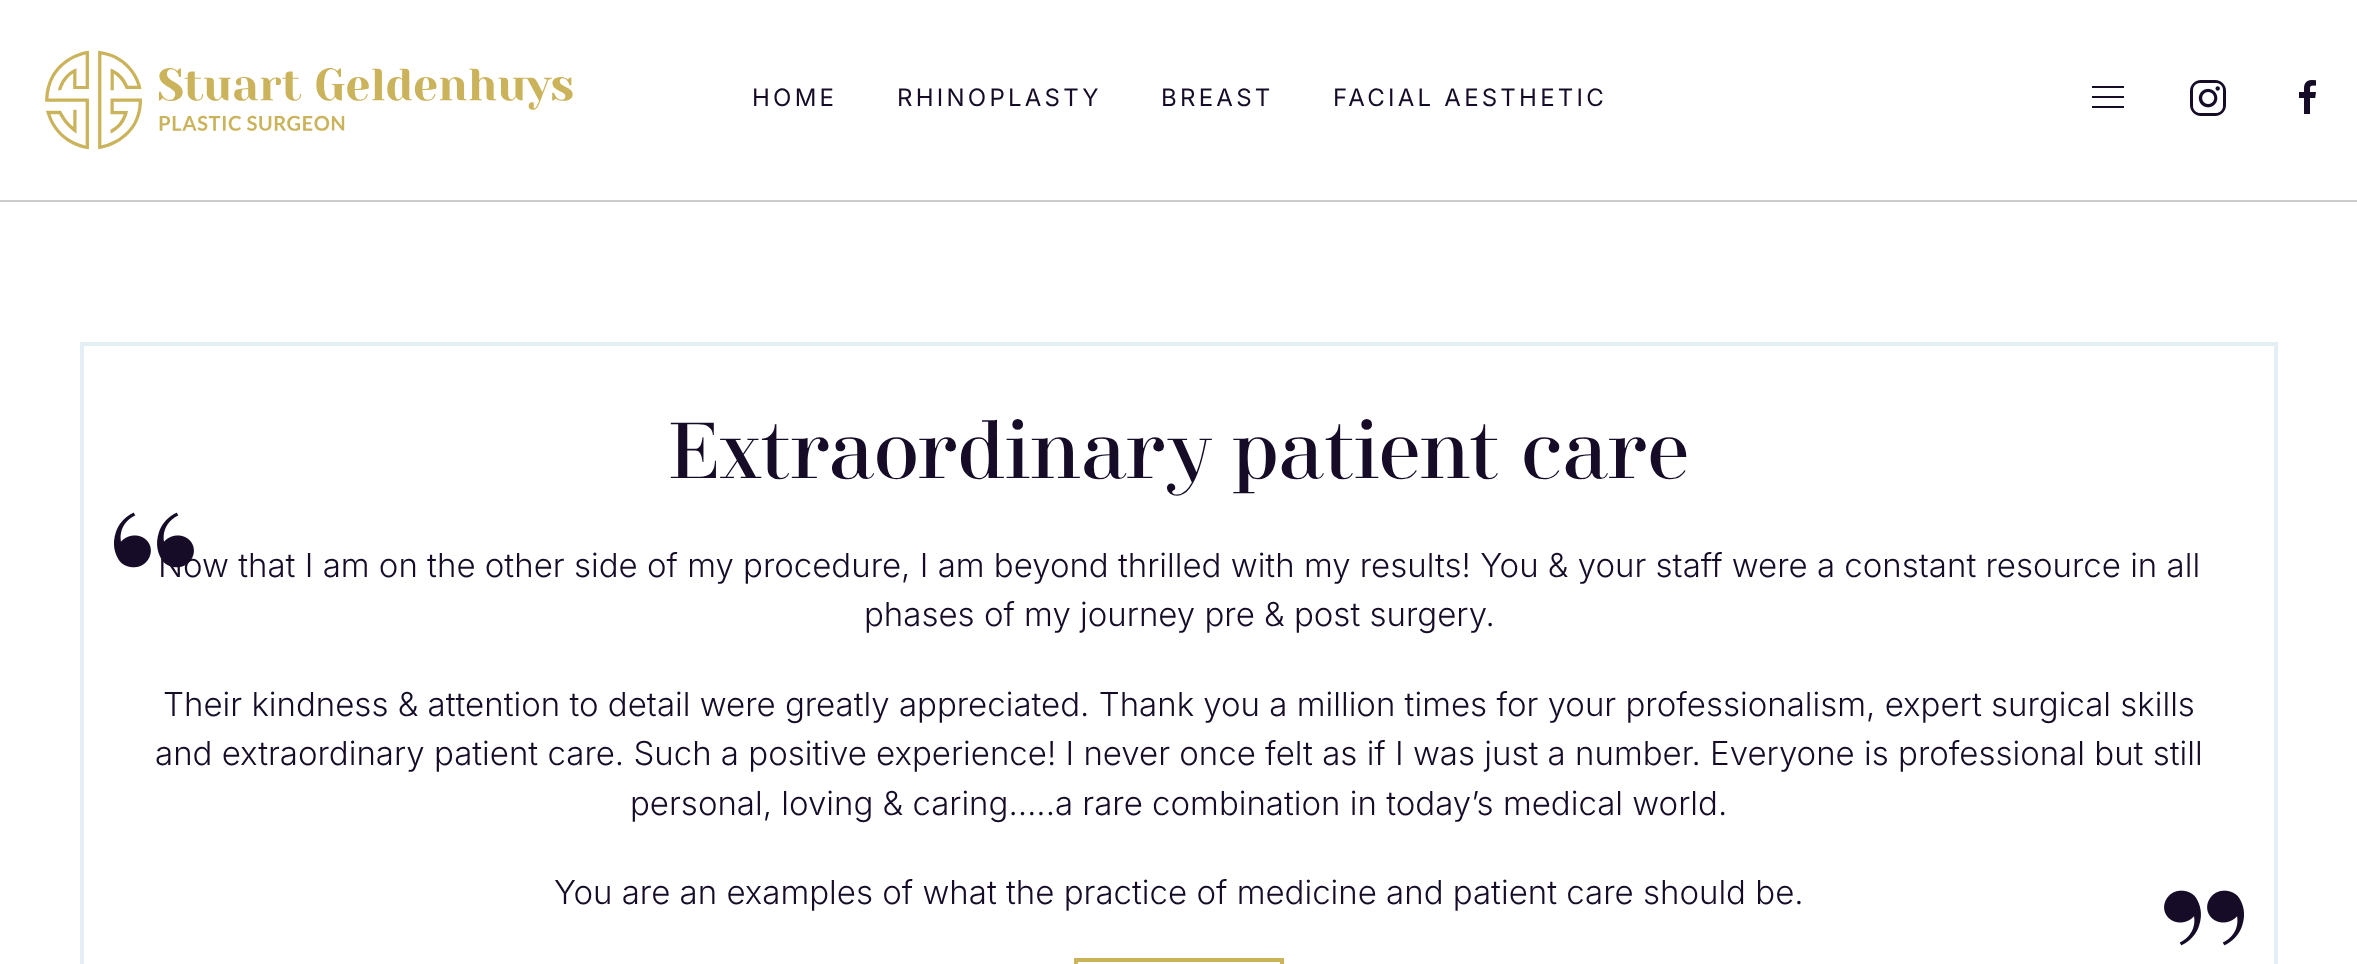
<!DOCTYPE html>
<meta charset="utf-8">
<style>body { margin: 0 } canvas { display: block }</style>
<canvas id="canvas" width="2357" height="964"></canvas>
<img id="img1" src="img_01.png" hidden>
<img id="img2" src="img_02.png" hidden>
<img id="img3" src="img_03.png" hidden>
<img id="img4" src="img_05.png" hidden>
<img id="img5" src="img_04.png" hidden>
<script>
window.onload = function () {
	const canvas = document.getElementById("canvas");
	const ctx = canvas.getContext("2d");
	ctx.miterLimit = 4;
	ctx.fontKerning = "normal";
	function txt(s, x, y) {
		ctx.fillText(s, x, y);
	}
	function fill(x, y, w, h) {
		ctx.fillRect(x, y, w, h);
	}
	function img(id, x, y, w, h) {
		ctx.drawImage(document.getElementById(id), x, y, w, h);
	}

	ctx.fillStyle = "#FFFFFF";
	fill(0, 0, 2357, 964);
	ctx.fillStyle = "#CCCCCC";
	fill(0, 200, 2357, 2);
	img("img1", 45, 50, 528, 100);
	ctx.fillStyle = "#160C28";
	fill(2092, 86, 32, 2);
	fill(2092, 96, 32, 2);
	fill(2092, 106, 32, 2);
	img("img2", 2190, 80, 36, 36);
	img("img3", 2299, 80, 17, 34);
	ctx.strokeStyle = "#E4EFF5";
	ctx.lineWidth = 4;
	ctx.strokeRect(82, 344, 2194, 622);
	img("img4", 2164, 890, 80, 56);
	ctx.strokeStyle = "#CBB35C";
	ctx.strokeRect(1076, 960, 206, 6);
	ctx.letterSpacing = "3.25px";
	ctx.font = "24px Inter";
	txt("HOME", 752, 106);
	txt("RHINOPLASTY", 897, 106);
	txt("BREAST", 1161, 106);
	txt("FACIAL AESTHETIC", 1333, 106);
	ctx.letterSpacing = "0px";
	ctx.font = "78.75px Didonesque";
	txt("Extraordinary patient care", 669, 478);
	ctx.font = "300 33px Inter";
	txt("Now that I am on the other side of my procedure, I am beyond thrilled with my results! You & your staff were a constant resource in all", 158, 577);
	img("img5", 114, 512, 80, 56);
	txt("phases of my journey pre & post surgery.", 864, 626);
	txt("Their kindness & attention to detail were greatly appreciated. Thank you a million times for your professionalism, expert surgical skills", 163, 716);
	txt("and extraordinary patient care. Such a positive experience! I never once felt as if I was just a number. Everyone is professional but still", 155, 765);
	txt("personal, loving & caring…..a rare combination in today’s medical world.", 630, 815);
	txt("You are an examples of what the practice of medicine and patient care should be.", 554, 904);
};
</script>
